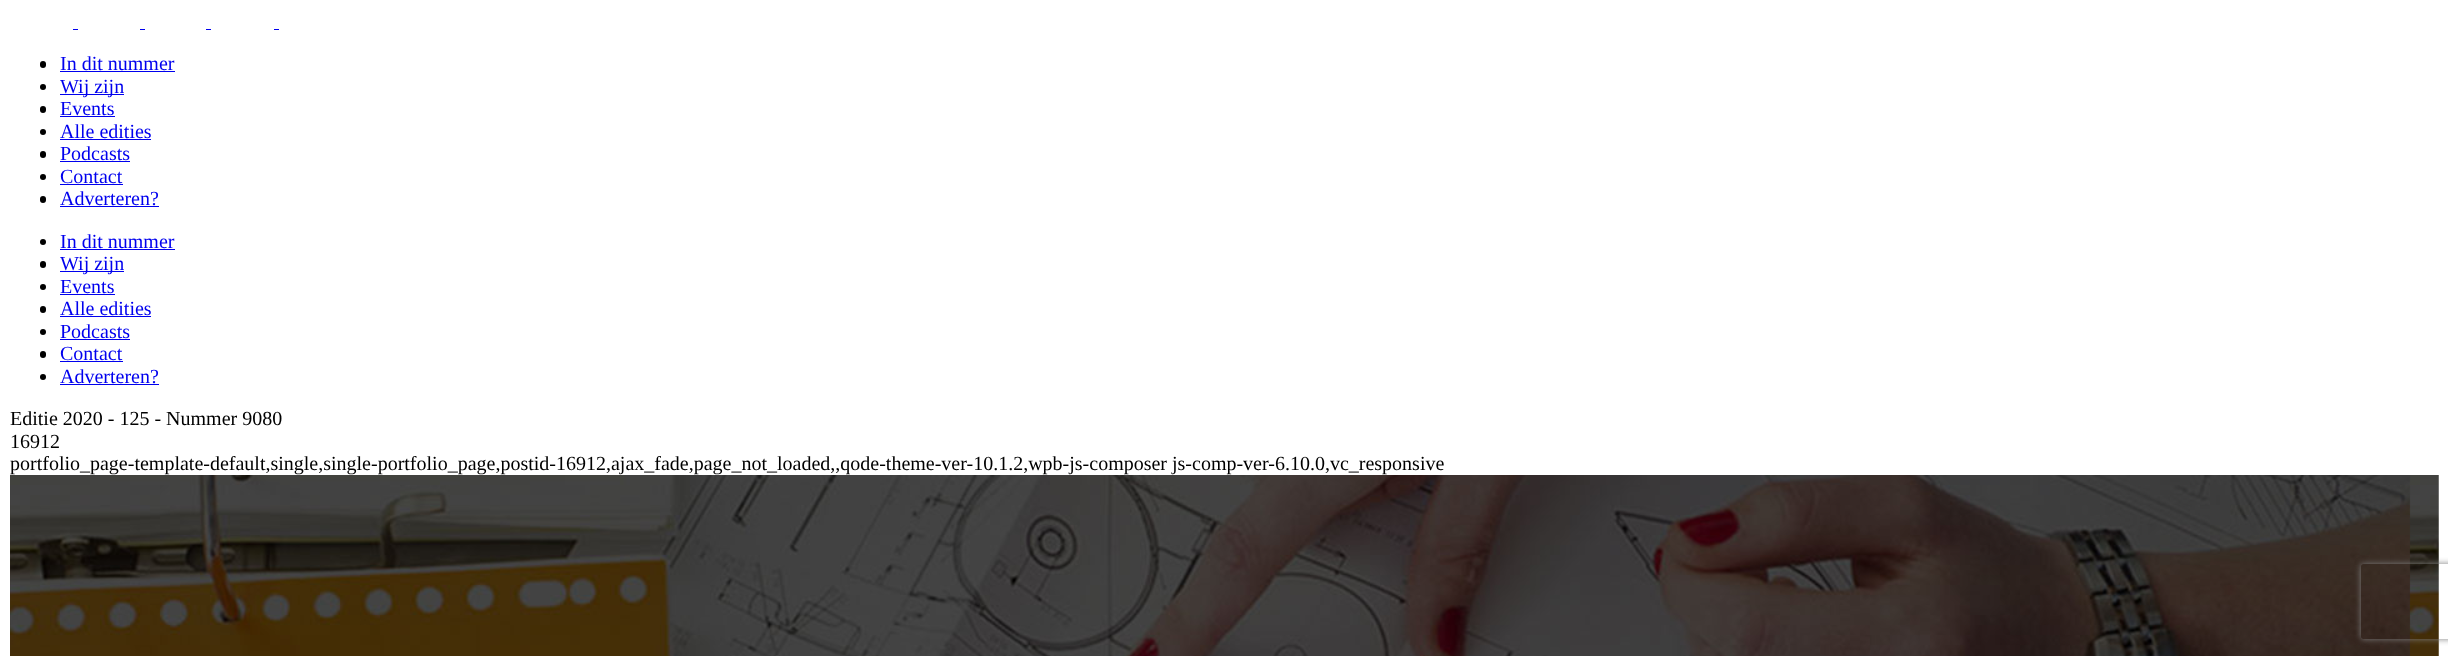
<!DOCTYPE html>
<meta charset="utf-8">
<style>body { margin: 0 } canvas { display: block }</style>
<canvas id="canvas" width="2448" height="656"></canvas>
<img id="img1" src="img_01.png" hidden>
<script>
window.onload = function () {
	const canvas = document.getElementById("canvas");
	const ctx = canvas.getContext("2d");
	ctx.miterLimit = 4;
	ctx.fontKerning = "normal";
	function txt(s, x, y) {
		ctx.fillText(s, x, y);
	}
	function fill(x, y, w, h) {
		ctx.fillRect(x, y, w, h);
	}
	function round(x, y, w, h, r) {
		ctx.beginPath();
		ctx.roundRect(x, y, w, h, r);
		ctx.fill();
	}
	function img(id, x, y, w, h) {
		ctx.drawImage(document.getElementById(id), x, y, w, h);
	}

	ctx.fillStyle = "#FFFFFF";
	fill(0, 0, 2448, 656);
	ctx.fillStyle = "#0000EE";
	fill(73, 29, 5, 1);
	fill(140, 29, 5, 1);
	fill(206, 29, 5, 1);
	fill(274, 29, 5, 1);
	ctx.fillStyle = "#000000";
	round(40, 61, 6, 7, 3);
	ctx.fillStyle = "#0000EE";
	fill(60, 71, 115, 1);
	ctx.fillStyle = "#000000";
	ctx.beginPath();
	ctx.arc(43, 87, 3, 0, Math.PI * 2);
	ctx.fill();
	ctx.fillStyle = "#0000EE";
	fill(60, 94, 64, 1);
	ctx.fillStyle = "#000000";
	round(40, 106, 6, 7, 3);
	ctx.fillStyle = "#0000EE";
	fill(60, 116, 55, 1);
	ctx.fillStyle = "#000000";
	ctx.beginPath();
	ctx.arc(43, 132, 3, 0, Math.PI * 2);
	ctx.fill();
	ctx.fillStyle = "#0000EE";
	fill(60, 139, 91, 1);
	ctx.fillStyle = "#000000";
	round(40, 151, 6, 7, 3);
	ctx.fillStyle = "#0000EE";
	fill(60, 161, 70, 1);
	ctx.fillStyle = "#000000";
	ctx.beginPath();
	ctx.arc(43, 177, 3, 0, Math.PI * 2);
	ctx.fill();
	ctx.fillStyle = "#0000EE";
	fill(60, 184, 63, 1);
	ctx.fillStyle = "#000000";
	round(40, 196, 6, 7, 3);
	ctx.fillStyle = "#0000EE";
	fill(60, 206, 99, 1);
	ctx.fillStyle = "#000000";
	ctx.beginPath();
	ctx.arc(43, 242, 3, 0, Math.PI * 2);
	ctx.fill();
	ctx.fillStyle = "#0000EE";
	fill(60, 249, 115, 1);
	ctx.fillStyle = "#000000";
	round(40, 261, 6, 7, 3);
	ctx.fillStyle = "#0000EE";
	fill(60, 271, 64, 1);
	ctx.fillStyle = "#000000";
	ctx.beginPath();
	ctx.arc(43, 287, 3, 0, Math.PI * 2);
	ctx.fill();
	ctx.fillStyle = "#0000EE";
	fill(60, 294, 55, 1);
	ctx.fillStyle = "#000000";
	round(40, 306, 6, 7, 3);
	ctx.fillStyle = "#0000EE";
	fill(60, 316, 91, 1);
	ctx.fillStyle = "#000000";
	ctx.beginPath();
	ctx.arc(43, 332, 3, 0, Math.PI * 2);
	ctx.fill();
	ctx.fillStyle = "#0000EE";
	fill(60, 339, 70, 1);
	ctx.fillStyle = "#000000";
	round(40, 351, 6, 7, 3);
	ctx.fillStyle = "#0000EE";
	fill(60, 361, 63, 1);
	ctx.fillStyle = "#000000";
	ctx.beginPath();
	ctx.arc(43, 377, 3, 0, Math.PI * 2);
	ctx.fill();
	ctx.fillStyle = "#0000EE";
	fill(60, 384, 99, 1);
	img("img1", 10, 475, 2429, 181);
	ctx.save();
	ctx.beginPath();
	ctx.moveTo(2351, 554);
	ctx.lineTo(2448, 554);
	ctx.lineTo(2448, 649);
	ctx.lineTo(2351, 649);
	ctx.closePath();
	ctx.moveTo(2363.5, 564);
	ctx.lineTo(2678.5, 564);
	ctx.bezierCurveTo(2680, 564, 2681, 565, 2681, 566.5);
	ctx.lineTo(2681, 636.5);
	ctx.bezierCurveTo(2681, 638, 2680, 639, 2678.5, 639);
	ctx.lineTo(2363.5, 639);
	ctx.bezierCurveTo(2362, 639, 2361, 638, 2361, 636.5);
	ctx.lineTo(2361, 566.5);
	ctx.bezierCurveTo(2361, 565, 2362, 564, 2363.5, 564);
	ctx.closePath();
	ctx.clip("evenodd");
	ctx.fillStyle = "#808080";
	ctx.filter = "blur(3px)";
	ctx.beginPath();
	ctx.roundRect(2361, 564, 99, 75, 2.5);
	ctx.fill();
	ctx.filter = "none";
	ctx.restore();
	ctx.font = "20px Liberation Serif";
	txt("In dit nummer", 60, 70);
	txt("Wij zijn", 60, 93);
	txt("Events", 60, 115);
	txt("Alle edities", 60, 138);
	txt("Podcasts", 60, 160);
	txt("Contact", 60, 183);
	txt("Adverteren?", 60, 205);
	txt("In dit nummer", 60, 248);
	txt("Wij zijn", 60, 270);
	txt("Events", 60, 293);
	txt("Alle edities", 60, 315);
	txt("Podcasts", 60, 338);
	txt("Contact", 60, 360);
	txt("Adverteren?", 60, 383);
	ctx.fillStyle = "#000000";
	txt("Editie 2020 - 125 - Nummer 9080", 10, 425);
	txt("16912", 10, 448);
	txt("portfolio_page-template-default,single,single-portfolio_page,postid-16912,ajax_fade,page_not_loaded,,qode-theme-ver-10.1.2,wpb-js-composer js-comp-ver-6.10.0,vc_responsive", 10, 470);
};
</script>
